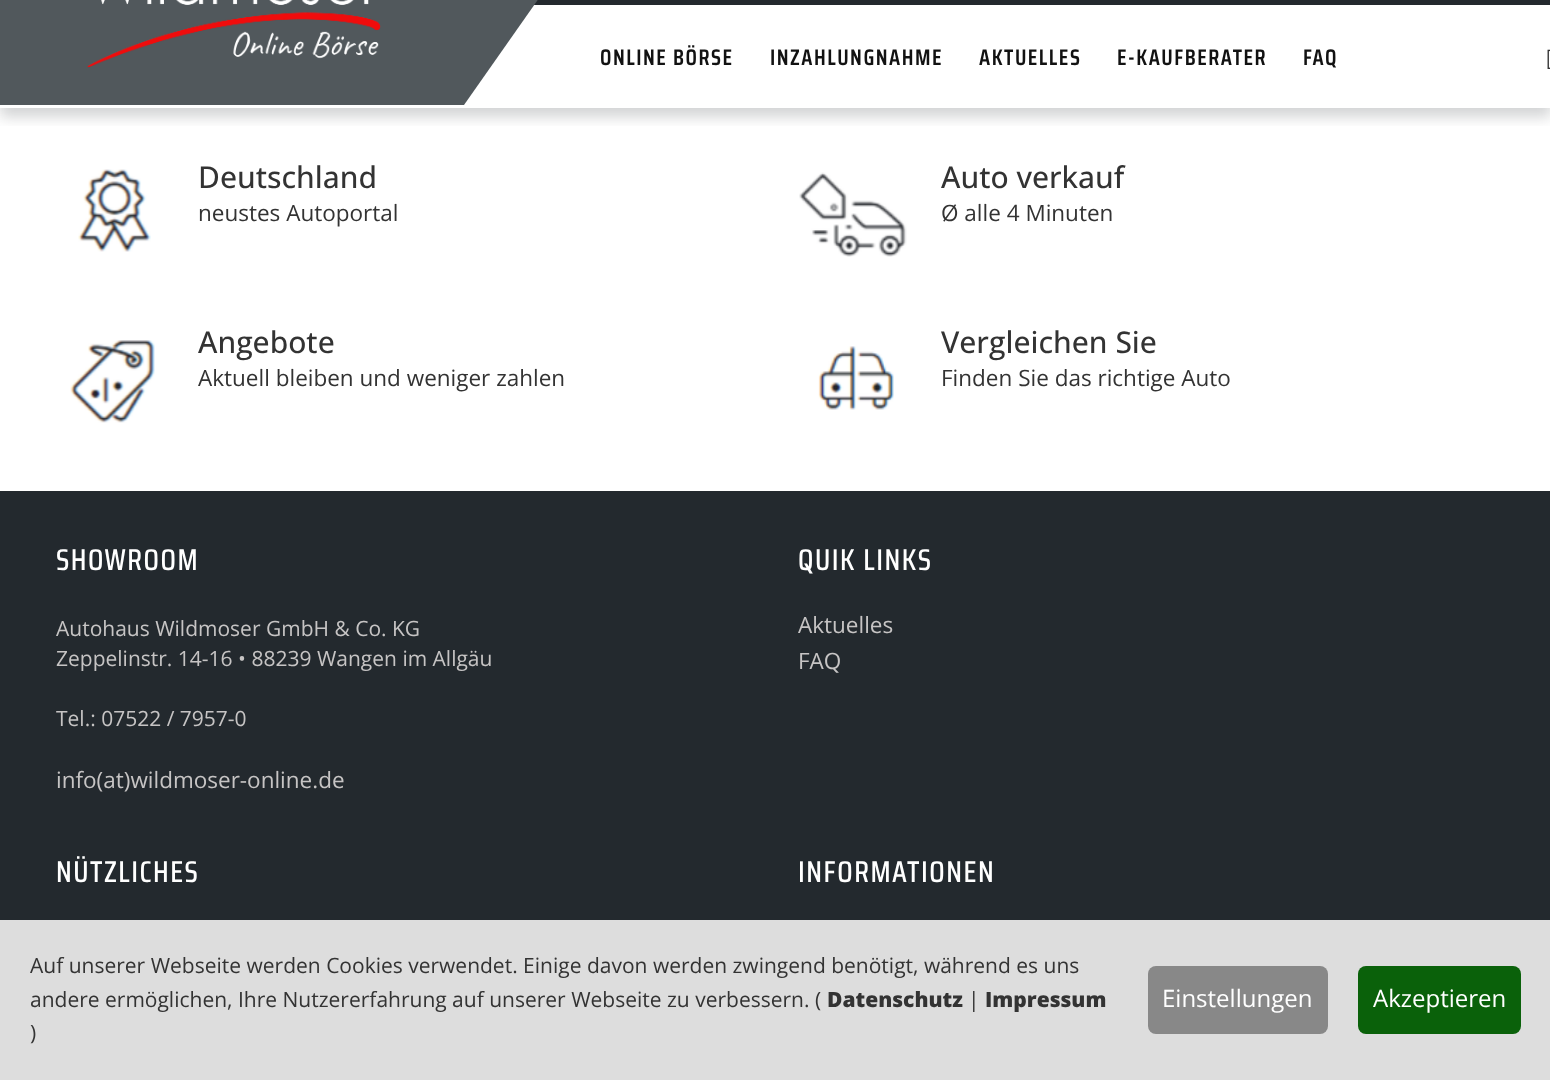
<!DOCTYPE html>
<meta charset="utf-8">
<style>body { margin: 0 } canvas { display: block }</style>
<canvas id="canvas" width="1550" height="1080"></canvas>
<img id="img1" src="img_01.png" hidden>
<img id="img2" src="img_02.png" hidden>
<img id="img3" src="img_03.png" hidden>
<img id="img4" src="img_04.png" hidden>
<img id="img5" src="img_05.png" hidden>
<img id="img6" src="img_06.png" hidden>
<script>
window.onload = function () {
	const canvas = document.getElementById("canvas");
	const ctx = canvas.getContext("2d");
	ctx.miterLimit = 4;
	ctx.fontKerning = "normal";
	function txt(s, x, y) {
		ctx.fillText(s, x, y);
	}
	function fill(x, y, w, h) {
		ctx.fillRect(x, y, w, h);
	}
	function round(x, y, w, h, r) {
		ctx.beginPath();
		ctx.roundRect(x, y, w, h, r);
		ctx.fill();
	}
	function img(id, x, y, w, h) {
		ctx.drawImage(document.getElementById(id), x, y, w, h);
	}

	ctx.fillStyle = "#FFFFFF";
	fill(0, 0, 1550, 1080);
	ctx.save();
	ctx.beginPath();
	ctx.rect(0, 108, 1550, 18);
	ctx.clip();
	ctx.fillStyle = "rgba(36, 39, 44, 0.2)";
	ctx.filter = "blur(7px)";
	ctx.beginPath();
	ctx.rect(0, -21, 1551, 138);
	ctx.fill();
	ctx.filter = "none";
	ctx.restore();
	ctx.fillStyle = "#23292E";
	fill(534, 0, 1016, 5);
	ctx.fillStyle = "#51585C";
	ctx.beginPath();
	ctx.moveTo(-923, -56);
	ctx.lineTo(577, -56);
	ctx.lineTo(464, 105);
	ctx.lineTo(-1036, 105);
	ctx.closePath();
	ctx.fill();
	img("img1", 87, 0, 294, 68);
	img("img2", 1547, 49, 3, 20);
	img("img3", 78, 169, 73, 83);
	img("img4", 799, 172, 108, 85);
	img("img5", 70, 340, 85, 83);
	img("img6", 818, 346, 76, 64);
	ctx.fillStyle = "#23292E";
	fill(0, 491, 1550, 429);
	ctx.fillStyle = "#DDDDDD";
	fill(0, 920, 1550, 160);
	ctx.fillStyle = "#888888";
	round(1148, 966, 180, 68, 8);
	ctx.fillStyle = "#0A610A";
	round(1358, 966, 163, 68, 8);
	ctx.letterSpacing = "1.5px";
	ctx.font = "600 22.5px Saira Condensed";
	ctx.fillStyle = "#121212";
	txt("ONLINE BÖRSE", 600, 65);
	txt("INZAHLUNGNAHME", 770, 65);
	txt("AKTUELLES", 979, 65);
	txt("E-KAUFBERATER", 1117, 65);
	txt("FAQ", 1303, 65);
	ctx.letterSpacing = "0px";
	ctx.font = "500 30px Open Sans";
	ctx.fillStyle = "#333333";
	txt("Deutschland", 198, 188);
	ctx.font = "22.5px Open Sans";
	txt("neustes Autoportal", 198, 221);
	ctx.font = "500 30px Open Sans";
	txt("Auto verkauf", 941, 188);
	ctx.font = "22.5px Open Sans";
	txt("Ø alle 4 Minuten", 941, 221);
	ctx.font = "500 30px Open Sans";
	txt("Angebote", 198, 353);
	ctx.font = "22.5px Open Sans";
	txt("Aktuell bleiben und weniger zahlen", 198, 386);
	ctx.font = "500 30px Open Sans";
	txt("Vergleichen Sie", 941, 353);
	ctx.font = "22.5px Open Sans";
	txt("Finden Sie das richtige Auto", 941, 386);
	ctx.letterSpacing = "1.5px";
	ctx.font = "500 30px Saira Condensed";
	ctx.fillStyle = "#FFFFFF";
	txt("SHOWROOM", 56, 570);
	ctx.letterSpacing = "0px";
	ctx.font = "21px Open Sans";
	ctx.fillStyle = "#C6C4C4";
	txt("Autohaus Wildmoser GmbH & Co. KG", 56, 636);
	txt("Zeppelinstr. 14-16 • 88239 Wangen im Allgäu", 56, 666);
	txt("Tel.: 07522 / 7957-0", 56, 726);
	ctx.font = "22.5px Open Sans";
	txt("info(at)wildmoser-online.de", 56, 788);
	ctx.letterSpacing = "1.5px";
	ctx.font = "500 30px Saira Condensed";
	ctx.fillStyle = "#FFFFFF";
	txt("QUIK LINKS", 798, 570);
	ctx.letterSpacing = "0px";
	ctx.font = "22.5px Open Sans";
	ctx.fillStyle = "#C6C4C4";
	txt("Aktuelles", 798, 633);
	txt("FAQ", 798, 669);
	ctx.letterSpacing = "1.5px";
	ctx.font = "500 30px Saira Condensed";
	ctx.fillStyle = "#FFFFFF";
	txt("NÜTZLICHES", 56, 882);
	txt("INFORMATIONEN", 798, 882);
	ctx.letterSpacing = "0px";
	ctx.font = "21px Open Sans";
	ctx.fillStyle = "#333333";
	txt("Auf unserer Webseite werden Cookies verwendet. Einige davon werden zwingend benötigt, während es uns", 30, 973);
	txt("andere ermöglichen, Ihre Nutzererfahrung auf unserer Webseite zu verbessern. (", 30, 1007);
	ctx.font = "800 21px Open Sans";
	txt("Datenschutz", 827, 1007);
	ctx.font = "21px Open Sans";
	txt("|", 968, 1007);
	ctx.font = "800 21px Open Sans";
	txt("Impressum", 985, 1007);
	ctx.font = "21px Open Sans";
	txt(")", 30, 1040);
	ctx.font = "24px Open Sans";
	ctx.fillStyle = "#FFFFFF";
	txt("Einstellungen", 1162, 1007);
	txt("Akzeptieren", 1373, 1007);
};
</script>
